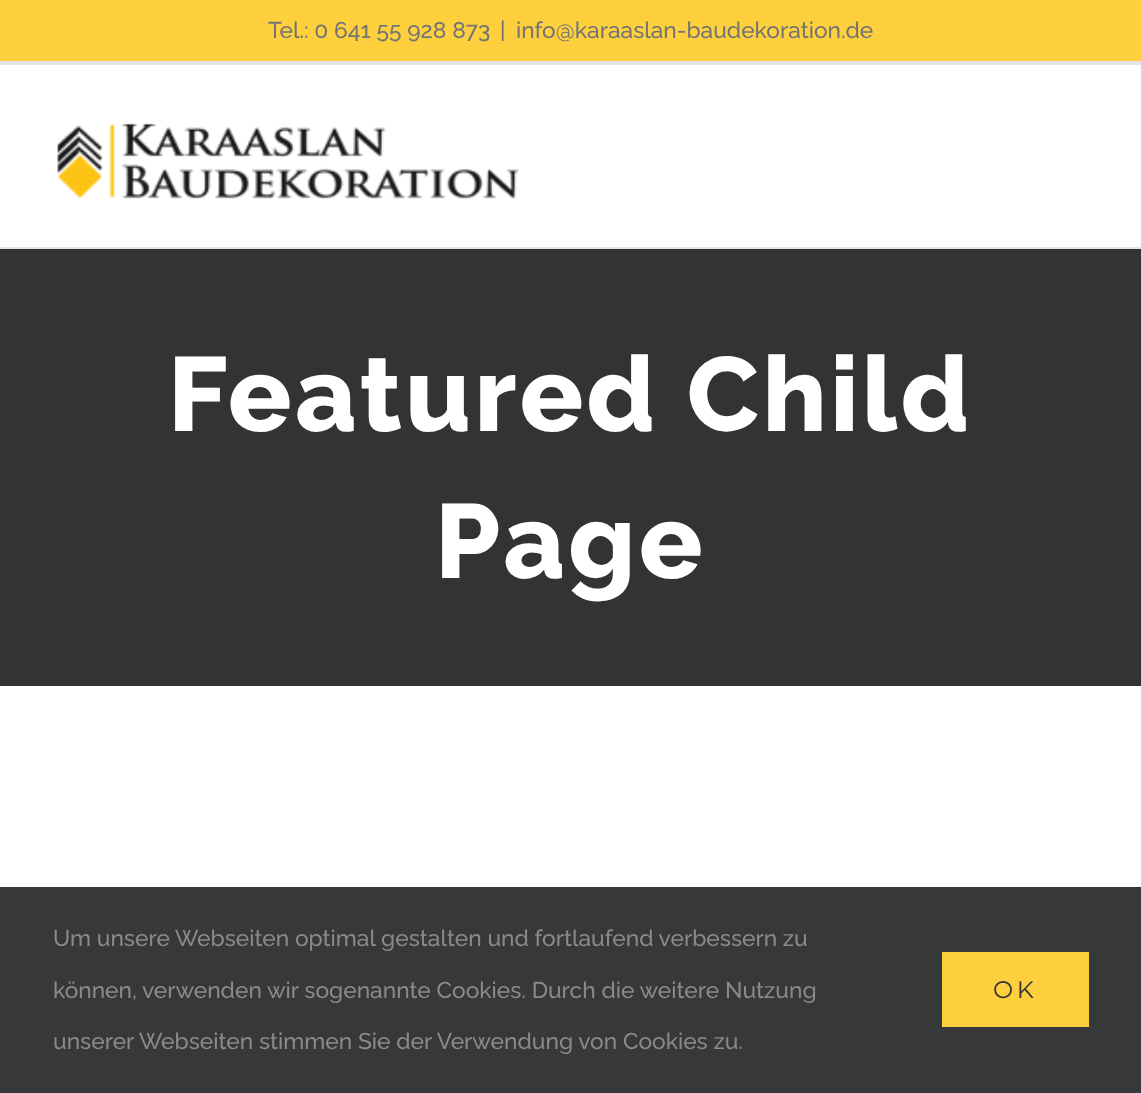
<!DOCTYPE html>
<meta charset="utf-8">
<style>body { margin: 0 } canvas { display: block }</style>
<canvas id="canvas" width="1141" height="1093"></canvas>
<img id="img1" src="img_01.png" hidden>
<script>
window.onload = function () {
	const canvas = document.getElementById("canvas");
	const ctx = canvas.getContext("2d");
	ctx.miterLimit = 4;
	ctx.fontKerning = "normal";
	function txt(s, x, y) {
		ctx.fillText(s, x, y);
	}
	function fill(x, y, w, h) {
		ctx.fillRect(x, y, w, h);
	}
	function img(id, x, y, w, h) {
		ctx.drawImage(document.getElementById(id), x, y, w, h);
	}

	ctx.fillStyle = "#FFFFFF";
	fill(0, 0, 1141, 1093);
	ctx.fillStyle = "#FED03D";
	fill(0, 0, 1141, 61);
	ctx.fillStyle = "#E5E5E5";
	fill(0, 61, 1141, 4);
	fill(0, 247, 1141, 2);
	img("img1", 57, 123, 462, 76);
	ctx.fillStyle = "#333333";
	fill(0, 249, 1141, 437);
	ctx.fillStyle = "#363839";
	fill(0, 887, 1141, 206);
	ctx.fillStyle = "#FED03D";
	fill(942, 952, 147, 75);
	ctx.font = "500 22.75px Raleway";
	ctx.fillStyle = "#747474";
	txt("Tel.: 0 641 55 928 873", 268, 38);
	txt("|", 500, 38);
	txt("info@karaaslan-baudekoration.de", 516, 38);
	ctx.letterSpacing = "3.5px";
	ctx.font = "800 105px Raleway";
	ctx.fillStyle = "#FFFFFF";
	txt("Featured Child", 168, 431);
	txt("Page", 435, 578);
	ctx.letterSpacing = "0px";
	ctx.font = "500 22.75px Raleway";
	ctx.fillStyle = "#8C8989";
	txt("Um unsere Webseiten optimal gestalten und fortlaufend verbessern zu", 53, 946);
	txt("können, verwenden wir sogenannte Cookies. Durch die weitere Nutzung", 53, 998);
	txt("unserer Webseiten stimmen Sie der Verwendung von Cookies zu.", 53, 1049);
	ctx.letterSpacing = "3.5px";
	ctx.font = "24px Montserrat";
	ctx.fillStyle = "#333333";
	txt("OK", 993, 998);
};
</script>
